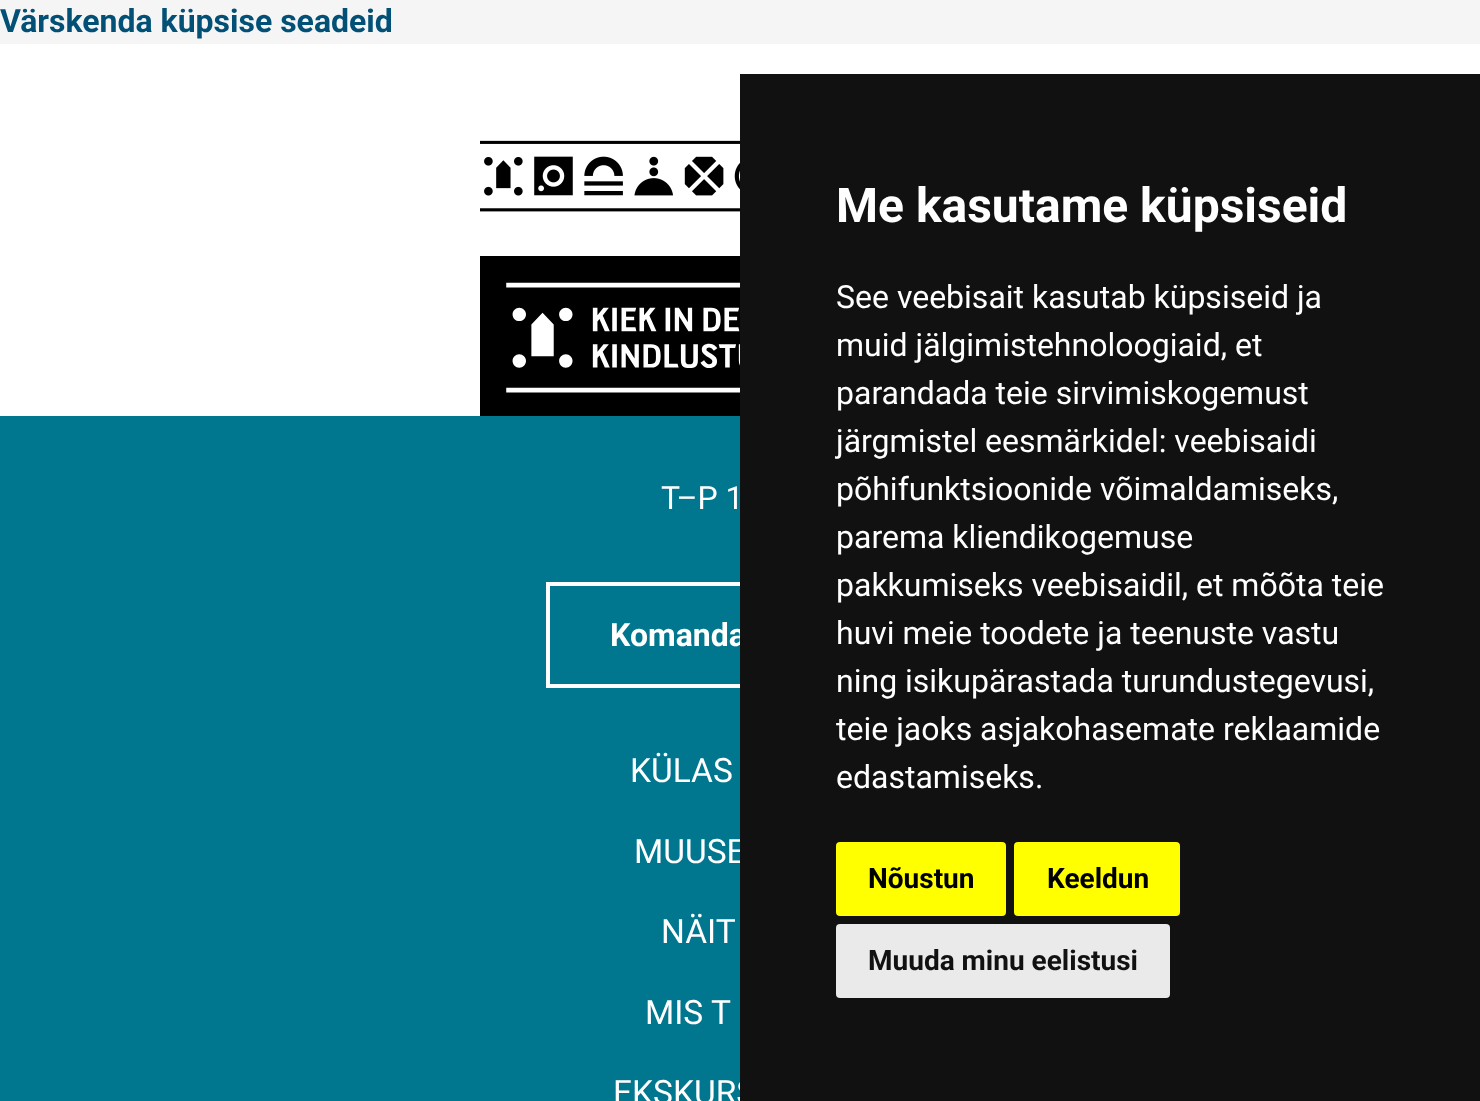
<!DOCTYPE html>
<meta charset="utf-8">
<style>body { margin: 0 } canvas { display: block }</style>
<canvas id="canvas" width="1480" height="1101"></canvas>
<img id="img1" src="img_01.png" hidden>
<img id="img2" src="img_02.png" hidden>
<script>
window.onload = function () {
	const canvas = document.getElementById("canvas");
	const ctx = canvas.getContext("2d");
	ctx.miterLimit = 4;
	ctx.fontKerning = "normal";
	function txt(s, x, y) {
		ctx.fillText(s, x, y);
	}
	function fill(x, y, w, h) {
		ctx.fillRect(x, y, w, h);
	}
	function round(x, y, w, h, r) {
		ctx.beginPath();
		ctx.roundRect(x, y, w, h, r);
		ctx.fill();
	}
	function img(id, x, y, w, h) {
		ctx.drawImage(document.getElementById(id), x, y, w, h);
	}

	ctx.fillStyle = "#F5F5F5";
	fill(0, 0, 1480, 1101);
	ctx.fillStyle = "#FFFFFF";
	fill(0, 44, 1480, 372);
	img("img1", 480, 140, 260, 72);
	img("img2", 480, 256, 260, 160);
	ctx.fillStyle = "#00768F";
	fill(0, 416, 740, 685);
	ctx.strokeStyle = "#FFFFFF";
	ctx.lineWidth = 4;
	ctx.strokeRect(548, 584, 384, 102);
	ctx.font = "bold 32px Roboto";
	ctx.fillStyle = "#025075";
	txt("Värskenda küpsise seadeid", 0, 32);
	ctx.font = "32px Roboto";
	ctx.fillStyle = "#FFFFFF";
	txt("T–P 1", 661, 509);
	ctx.font = "bold 32px Roboto";
	txt("Komanda", 610, 646);
	ctx.font = "33.5px Roboto";
	txt("KÜLAS", 630, 782);
	txt("MUUSE", 634, 863);
	txt("NÄIT", 661, 943);
	txt("MIS T", 645, 1024);
	txt("EKSKURS", 613, 1104);
	ctx.fillStyle = "#111111";
	fill(740, 74, 740, 1027);
	ctx.font = "bold 48px Roboto";
	ctx.fillStyle = "#FFFFFF";
	txt("Me kasutame küpsiseid", 836, 222);
	ctx.font = "32px Roboto";
	txt("See veebisait kasutab küpsiseid ja", 836, 308);
	txt("muid jälgimistehnoloogiaid, et", 836, 356);
	txt("parandada teie sirvimiskogemust", 836, 404);
	txt("järgmistel eesmärkidel: veebisaidi", 836, 452);
	txt("põhifunktsioonide võimaldamiseks,", 836, 500);
	txt("parema kliendikogemuse", 836, 548);
	txt("pakkumiseks veebisaidil, et mõõta teie", 836, 596);
	txt("huvi meie toodete ja teenuste vastu", 836, 644);
	txt("ning isikupärastada turundustegevusi,", 836, 692);
	txt("teie jaoks asjakohasemate reklaamide", 836, 740);
	txt("edastamiseks.", 836, 788);
	ctx.fillStyle = "#FFFF00";
	round(836, 842, 170, 74, 4);
	ctx.font = "bold 28px Roboto";
	ctx.fillStyle = "#000000";
	txt("Nõustun", 868, 888);
	ctx.fillStyle = "#FFFF00";
	round(1014, 842, 166, 74, 4);
	ctx.fillStyle = "#000000";
	txt("Keeldun", 1047, 888);
	ctx.fillStyle = "#EAEAEA";
	round(836, 924, 334, 74, 4);
	ctx.fillStyle = "#111111";
	txt("Muuda minu eelistusi", 868, 970);
};
</script>
